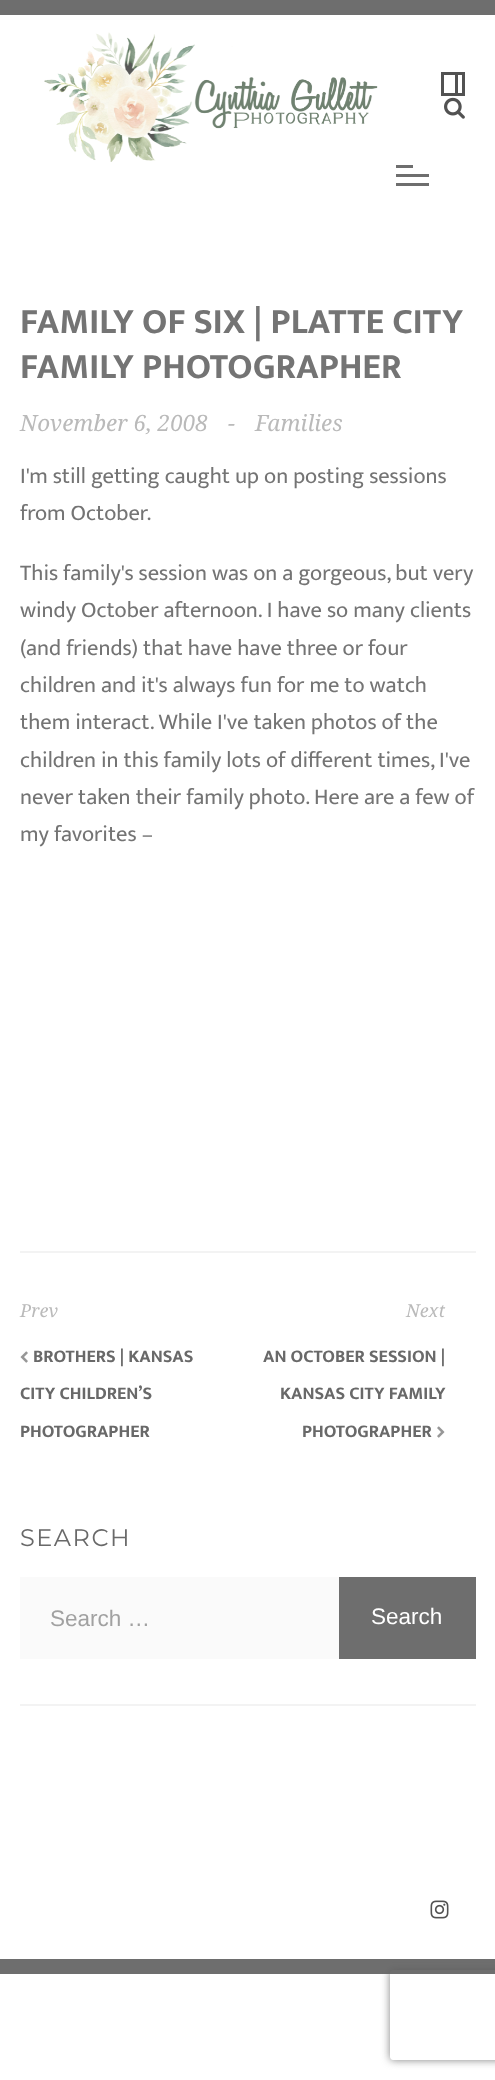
<!DOCTYPE html>
<meta charset="utf-8">
<style>body { margin: 0 } canvas { display: block }</style>
<canvas id="canvas" width="495" height="2080"></canvas>
<img id="img1" src="img_01.png" hidden>
<img id="img2" src="img_02.png" hidden>
<img id="img3" src="img_03.png" hidden>
<img id="img4" src="img_04.png" hidden>
<img id="img5" src="img_05.png" hidden>
<script>
window.onload = function () {
	const canvas = document.getElementById("canvas");
	const ctx = canvas.getContext("2d");
	ctx.miterLimit = 4;
	ctx.fontKerning = "normal";
	function txt(s, x, y) {
		ctx.fillText(s, x, y);
	}
	function fill(x, y, w, h) {
		ctx.fillRect(x, y, w, h);
	}
	function img(id, x, y, w, h) {
		ctx.drawImage(document.getElementById(id), x, y, w, h);
	}

	ctx.fillStyle = "#FFFFFF";
	fill(0, 0, 495, 2080);
	ctx.fillStyle = "#6E6E6E";
	fill(0, 0, 495, 15);
	img("img1", 44, 32, 334, 130);
	ctx.strokeStyle = "#525252";
	ctx.lineWidth = 3;
	ctx.strokeRect(442.5, 73.5, 21, 21);
	ctx.fillStyle = "#525252";
	fill(455, 75, 3, 18);
	img("img2", 444, 97, 21, 22);
	ctx.fillStyle = "#6E6E6E";
	fill(396, 165, 17, 3);
	fill(396, 174, 33, 3);
	fill(396, 183, 33, 3);
	ctx.fillStyle = "#F3F3F3";
	fill(20, 1251, 456, 2);
	img("img3", 20, 1351, 8, 12);
	img("img4", 437, 1426, 8, 12);
	fill(20, 1704, 456, 2);
	ctx.fillStyle = "#FAFAFA";
	fill(20, 1577, 319, 82);
	ctx.fillStyle = "#6E6E6E";
	fill(339, 1577, 137, 82);
	ctx.save();
	ctx.beginPath();
	ctx.moveTo(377, 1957);
	ctx.lineTo(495, 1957);
	ctx.lineTo(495, 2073);
	ctx.lineTo(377, 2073);
	ctx.closePath();
	ctx.moveTo(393, 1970);
	ctx.lineTo(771, 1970);
	ctx.bezierCurveTo(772.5, 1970, 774, 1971.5, 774, 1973);
	ctx.lineTo(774, 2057);
	ctx.bezierCurveTo(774, 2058.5, 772.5, 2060, 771, 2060);
	ctx.lineTo(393, 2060);
	ctx.bezierCurveTo(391.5, 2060, 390, 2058.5, 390, 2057);
	ctx.lineTo(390, 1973);
	ctx.bezierCurveTo(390, 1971.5, 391.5, 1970, 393, 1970);
	ctx.closePath();
	ctx.clip("evenodd");
	ctx.fillStyle = "#808080";
	ctx.filter = "blur(4px)";
	ctx.beginPath();
	ctx.roundRect(390, 1970, 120, 90, 3);
	ctx.fill();
	ctx.filter = "none";
	ctx.restore();
	ctx.fillStyle = "rgba(255, 255, 255, 0.68)";
	fill(383, 1963, 112, 11);
	ctx.fillStyle = "rgba(41, 41, 41, 0.68)";
	fill(0, 1959, 495, 15);
	img("img5", 430, 1900, 19, 19);
	ctx.font = "bold 36px Ek Mukta";
	ctx.fillStyle = "#747474";
	txt("FAMILY OF SIX | PLATTE CITY", 20, 333);
	txt("FAMILY PHOTOGRAPHER", 20, 378);
	ctx.font = "italic 22.5px Droid Serif";
	ctx.fillStyle = "#BABABA";
	txt("November 6, 2008", 20, 431);
	txt("-", 228, 431);
	txt("Families", 255, 431);
	ctx.font = "22.5px Ek Mukta";
	ctx.fillStyle = "#747474";
	txt("I'm still getting caught up on posting sessions", 20, 483);
	txt("from October.", 20, 520);
	txt("This family's session was on a gorgeous, but very", 20, 580);
	txt("windy October afternoon. I have so many clients", 20, 617);
	txt("(and friends) that have have three or four", 20, 655);
	txt("children and it's always fun for me to watch", 20, 692);
	txt("them interact. While I've taken photos of the", 20, 729);
	txt("children in this family lots of different times, I've", 20, 767);
	txt("never taken their family photo. Here are a few of", 20, 804);
	txt("my favorites –", 20, 841);
	ctx.font = "italic 18px Droid Serif";
	ctx.fillStyle = "#BABABA";
	txt("Prev", 20, 1317);
	ctx.font = "bold 18px Ek Mukta";
	ctx.fillStyle = "#696969";
	txt("BROTHERS | KANSAS", 33, 1362);
	txt("CITY CHILDREN’S", 20, 1399);
	txt("PHOTOGRAPHER", 20, 1437);
	ctx.font = "italic 18px Droid Serif";
	ctx.fillStyle = "#BABABA";
	txt("Next", 406, 1317);
	ctx.font = "bold 18px Ek Mukta";
	ctx.fillStyle = "#696969";
	txt("AN OCTOBER SESSION |", 263, 1362);
	txt("KANSAS CITY FAMILY", 280, 1399);
	txt("PHOTOGRAPHER", 302, 1437);
	ctx.letterSpacing = "1.5px";
	ctx.font = "24px Montserrat";
	txt("SEARCH", 20, 1546);
	ctx.letterSpacing = "0px";
	ctx.font = "22.5px Liberation Sans";
	ctx.fillStyle = "#A1A1A1";
	txt("Search …", 50, 1626);
	ctx.fillStyle = "#FFFFFF";
	txt("Search", 371, 1624);
};
</script>
